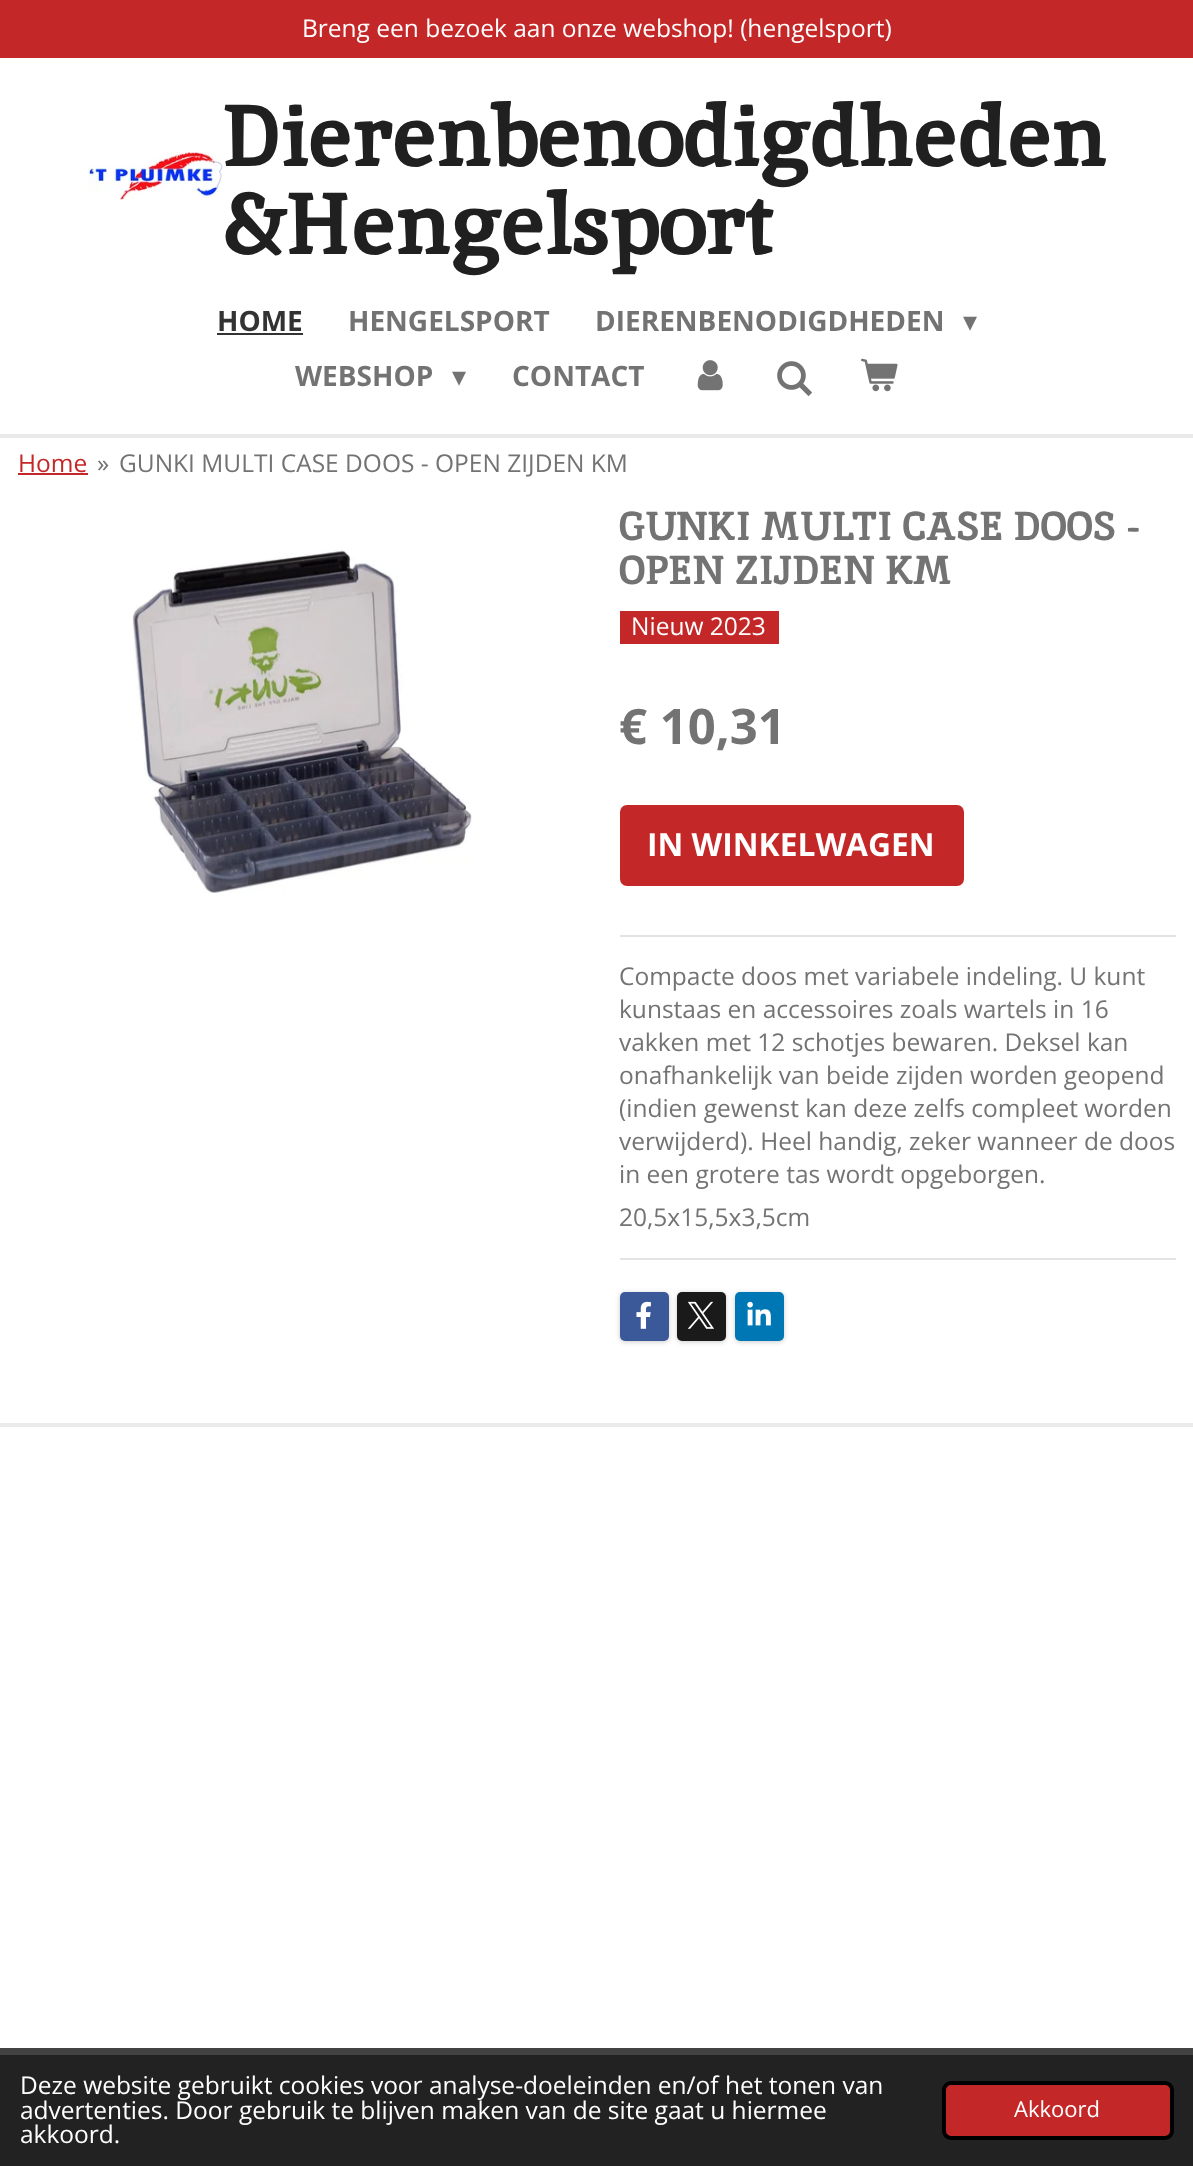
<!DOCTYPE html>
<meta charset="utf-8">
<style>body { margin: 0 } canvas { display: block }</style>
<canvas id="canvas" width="1193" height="2166"></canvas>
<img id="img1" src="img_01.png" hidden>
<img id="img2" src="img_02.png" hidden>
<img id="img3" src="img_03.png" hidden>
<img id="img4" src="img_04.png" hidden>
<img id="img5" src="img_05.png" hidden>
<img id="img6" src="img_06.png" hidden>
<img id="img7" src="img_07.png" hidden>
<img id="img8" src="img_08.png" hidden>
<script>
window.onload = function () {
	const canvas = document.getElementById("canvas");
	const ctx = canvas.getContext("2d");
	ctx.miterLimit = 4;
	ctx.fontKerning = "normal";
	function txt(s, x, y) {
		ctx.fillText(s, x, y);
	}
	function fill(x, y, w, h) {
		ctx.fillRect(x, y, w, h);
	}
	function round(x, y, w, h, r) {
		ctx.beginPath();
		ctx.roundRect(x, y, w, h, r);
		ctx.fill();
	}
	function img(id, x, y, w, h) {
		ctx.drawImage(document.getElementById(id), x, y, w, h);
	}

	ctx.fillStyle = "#FFFFFF";
	fill(0, 0, 1193, 2166);
	ctx.fillStyle = "#C42727";
	fill(0, 0, 1193, 58);
	img("img1", 88, 152, 135, 48);
	ctx.fillStyle = "#333333";
	fill(217, 333, 86, 2);
	img("img2", 697, 360, 26, 31);
	img("img3", 777, 361, 35, 36);
	img("img4", 861, 358, 37, 34);
	ctx.fillStyle = "#EAEAEA";
	fill(0, 434, 1193, 4);
	fill(0, 1423, 1193, 4);
	ctx.fillStyle = "#C42727";
	fill(18, 473, 70, 2);
	img("img5", 132, 549, 340, 344);
	fill(620, 611, 159, 33);
	round(620, 805, 344, 81, 7);
	ctx.fillStyle = "#E3E3E3";
	fill(620, 935, 556, 2);
	fill(620, 1258, 556, 2);
	ctx.fillStyle = "rgba(0, 0, 0, 0.2)";
	ctx.filter = "blur(2.5px)";
	ctx.beginPath();
	ctx.roundRect(620, 1293, 49, 49, 5);
	ctx.fill();
	ctx.filter = "none";
	ctx.fillStyle = "#3B5998";
	round(620, 1292, 49, 49, 5);
	img("img6", 636, 1301, 15, 28);
	ctx.fillStyle = "rgba(0, 0, 0, 0.2)";
	ctx.filter = "blur(2.5px)";
	ctx.beginPath();
	ctx.roundRect(677, 1293, 49, 49, 5);
	ctx.fill();
	ctx.filter = "none";
	ctx.fillStyle = "#1A1A1A";
	round(677, 1292, 49, 49, 5);
	img("img7", 687, 1301, 27, 28);
	ctx.fillStyle = "rgba(0, 0, 0, 0.2)";
	ctx.filter = "blur(2.5px)";
	ctx.beginPath();
	ctx.roundRect(735, 1293, 49, 49, 5);
	ctx.fill();
	ctx.filter = "none";
	ctx.fillStyle = "#0077B5";
	round(735, 1292, 49, 49, 5);
	img("img8", 747, 1301, 24, 25);
	ctx.fillStyle = "#424242";
	fill(0, 2048, 1193, 7);
	ctx.fillStyle = "#222222";
	fill(0, 2055, 1193, 111);
	ctx.fillStyle = "#C42727";
	ctx.beginPath();
	ctx.roundRect(944, 2083, 228, 55, 7);
	ctx.fill();
	ctx.strokeStyle = "#000000";
	ctx.lineWidth = 4;
	ctx.stroke();
	ctx.font = "24.5px Open Sans";
	ctx.fillStyle = "#FFFFFF";
	txt("Breng een bezoek aan onze webshop! (hengelsport)", 302, 37);
	ctx.font = "bold 87.5px Inika";
	ctx.fillStyle = "#202020";
	txt("Dierenbenodigdheden", 222, 166);
	txt("&Hengelsport", 222, 254);
	ctx.font = "bold 28px Open Sans";
	ctx.fillStyle = "#333333";
	txt("HOME", 217, 331);
	ctx.fillStyle = "#737373";
	txt("HENGELSPORT", 348, 331);
	txt("DIERENBENODIGDHEDEN", 595, 331);
	ctx.font = "28px DejaVu Sans";
	txt("▾", 963, 331);
	ctx.font = "bold 28px Open Sans";
	txt("WEBSHOP", 295, 386);
	ctx.font = "28px DejaVu Sans";
	txt("▾", 452, 386);
	ctx.font = "bold 28px Open Sans";
	txt("CONTACT", 512, 386);
	ctx.font = "24.5px Open Sans";
	ctx.fillStyle = "#C42727";
	txt("Home", 18, 472);
	ctx.fillStyle = "#737373";
	txt("»", 97, 472);
	txt("GUNKI MULTI CASE DOOS - OPEN ZIJDEN KM", 119, 472);
	ctx.font = "bold 40.25px Inika";
	txt("GUNKI MULTI CASE DOOS -", 619, 540);
	txt("OPEN ZIJDEN KM", 619, 584);
	ctx.font = "24.5px Open Sans";
	ctx.fillStyle = "#FFFFFF";
	txt("Nieuw 2023", 631, 635);
	ctx.font = "bold 49px Open Sans";
	ctx.fillStyle = "#737373";
	txt("€ 10,31", 619, 744);
	ctx.font = "bold 31.75px Open Sans";
	ctx.fillStyle = "#FFFFFF";
	txt("IN WINKELWAGEN", 647, 856);
	ctx.font = "24.5px Open Sans";
	ctx.fillStyle = "#737373";
	txt("Compacte doos met variabele indeling. U kunt", 619, 985);
	txt("kunstaas en accessoires zoals wartels in 16", 619, 1018);
	txt("vakken met 12 schotjes bewaren. Deksel kan", 619, 1051);
	txt("onafhankelijk van beide zijden worden geopend", 619, 1084);
	txt("(indien gewenst kan deze zelfs compleet worden", 619, 1117);
	txt("verwijderd). Heel handig, zeker wanneer de doos", 619, 1150);
	txt("in een grotere tas wordt opgeborgen.", 619, 1183);
	txt("20,5x15,5x3,5cm", 619, 1226);
	ctx.fillStyle = "#FFFFFF";
	txt("Deze website gebruikt cookies voor analyse-doeleinden en/of het tonen van", 20, 2094);
	txt("advertenties. Door gebruik te blijven maken van de site gaat u hiermee", 20, 2119);
	txt("akkoord.", 20, 2143);
	ctx.font = "22px Open Sans";
	txt("Akkoord", 1014, 2117);
};
</script>
